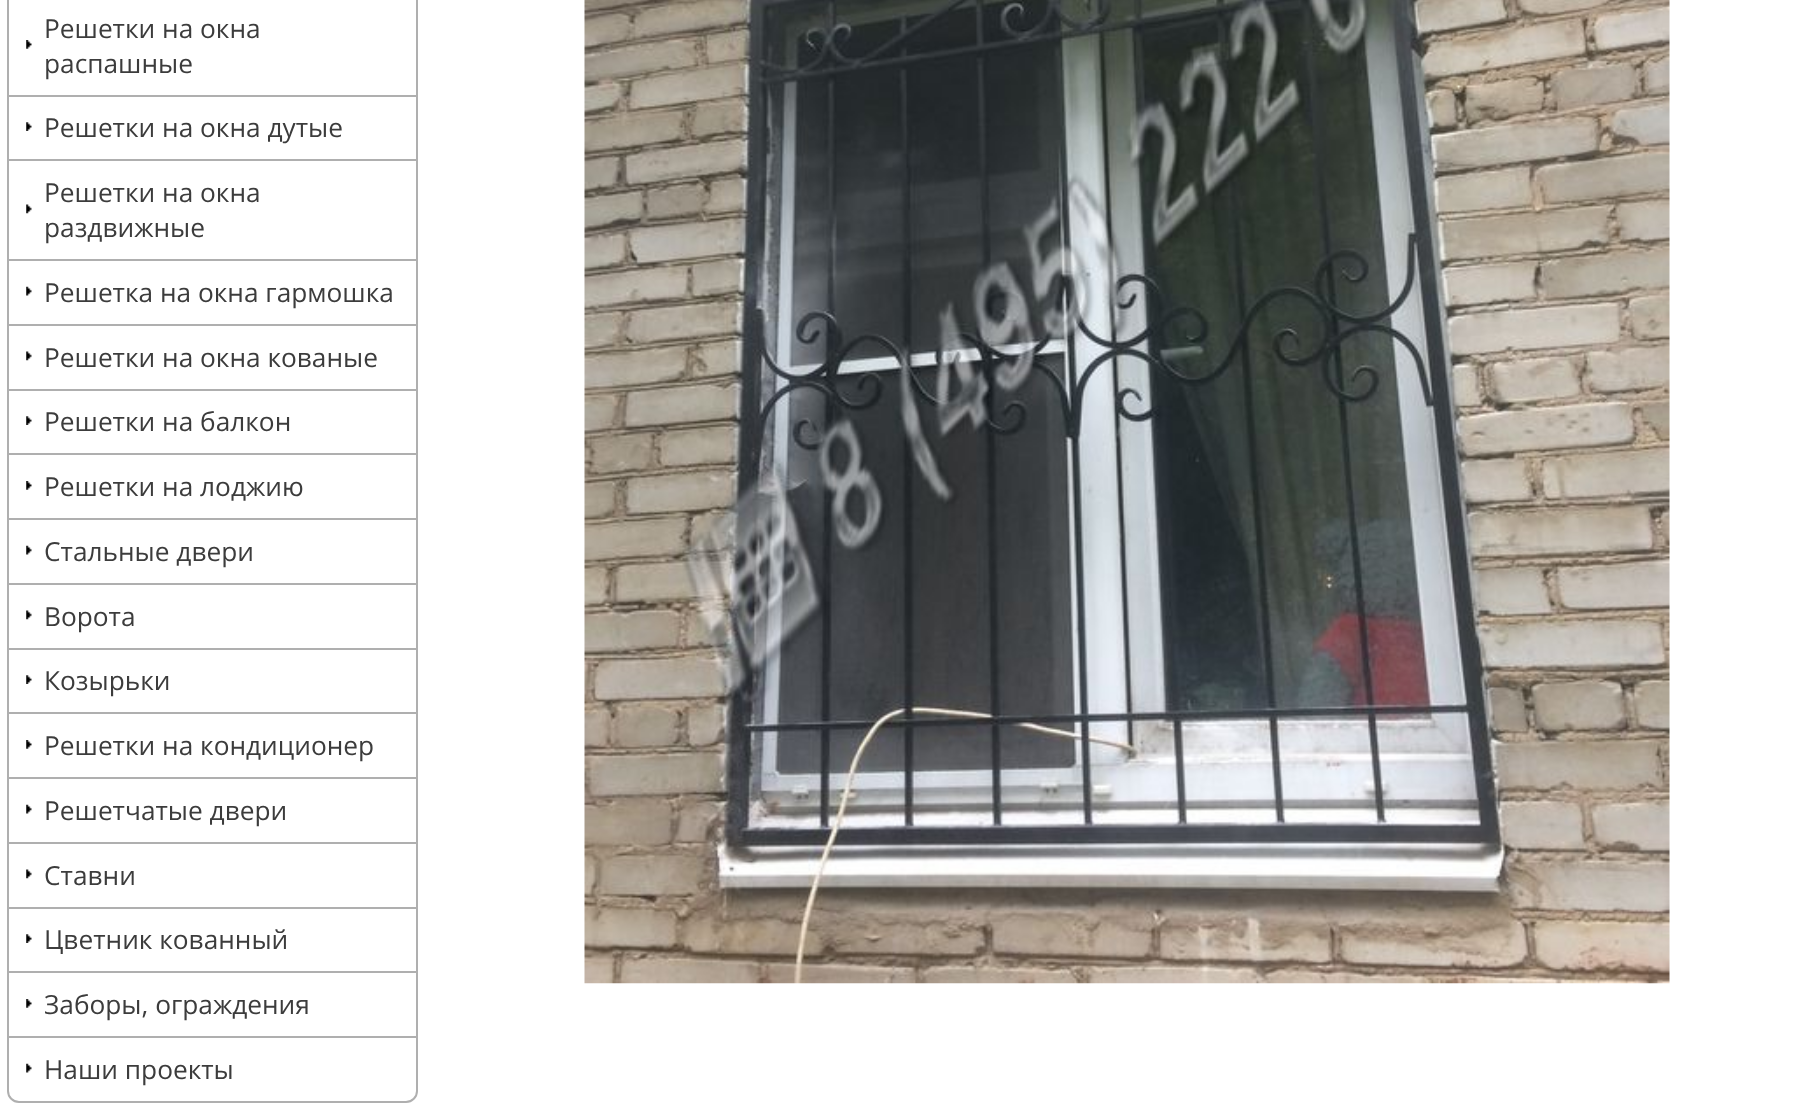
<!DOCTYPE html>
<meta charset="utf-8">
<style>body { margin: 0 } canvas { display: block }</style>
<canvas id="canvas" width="1806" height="1105"></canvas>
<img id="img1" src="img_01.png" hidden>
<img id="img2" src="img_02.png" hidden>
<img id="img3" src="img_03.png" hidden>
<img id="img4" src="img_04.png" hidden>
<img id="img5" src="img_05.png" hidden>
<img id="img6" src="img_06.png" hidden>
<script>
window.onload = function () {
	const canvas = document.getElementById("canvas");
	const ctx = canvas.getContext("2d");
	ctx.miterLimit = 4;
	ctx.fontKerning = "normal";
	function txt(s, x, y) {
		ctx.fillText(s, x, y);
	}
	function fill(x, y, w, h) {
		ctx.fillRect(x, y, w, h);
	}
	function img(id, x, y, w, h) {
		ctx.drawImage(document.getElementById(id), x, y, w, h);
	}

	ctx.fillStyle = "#FFFFFF";
	fill(0, 0, 1806, 1105);
	ctx.beginPath();
	ctx.roundRect(8, -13, 409, 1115, 11);
	ctx.strokeStyle = "#AFAFAF";
	ctx.lineWidth = 2;
	ctx.stroke();
	img("img1", 26, 40, 6, 9);
	img("img2", 26, 122, 6, 9);
	ctx.fillStyle = "#AFAFAF";
	fill(9, 95, 408, 2);
	img("img3", 26, 204, 6, 10);
	fill(9, 159, 408, 2);
	img("img4", 26, 286, 6, 10);
	fill(9, 259, 408, 2);
	img("img3", 26, 351, 6, 10);
	fill(9, 324, 408, 2);
	img("img2", 26, 416, 6, 9);
	fill(9, 389, 408, 2);
	img("img1", 26, 481, 6, 9);
	fill(9, 453, 408, 2);
	img("img4", 26, 545, 6, 10);
	fill(9, 518, 408, 2);
	img("img3", 26, 610, 6, 10);
	fill(9, 583, 408, 2);
	img("img2", 26, 675, 6, 9);
	fill(9, 648, 408, 2);
	img("img1", 26, 740, 6, 9);
	fill(9, 712, 408, 2);
	img("img4", 26, 804, 6, 10);
	fill(9, 777, 408, 2);
	img("img3", 26, 869, 6, 10);
	fill(9, 842, 408, 2);
	img("img5", 26, 934, 6, 9);
	fill(9, 907, 408, 2);
	img("img1", 26, 999, 6, 9);
	fill(9, 971, 408, 2);
	img("img4", 26, 1063, 6, 10);
	fill(9, 1036, 408, 2);
	img("img6", 584, 0, 1086, 984);
	ctx.font = "26.25px Open Sans";
	ctx.fillStyle = "#3C3C3C";
	txt("Решетки на окна", 44, 38);
	txt("распашные", 44, 73);
	txt("Решетки на окна дутые", 44, 137);
	txt("Решетки на окна", 44, 202);
	txt("раздвижные", 44, 237);
	txt("Решетка на окна гармошка", 44, 302);
	txt("Решетки на окна кованые", 44, 367);
	txt("Решетки на балкон", 44, 431);
	txt("Решетки на лоджию", 44, 496);
	txt("Стальные двери", 44, 561);
	txt("Ворота", 44, 626);
	txt("Козырьки", 44, 690);
	txt("Решетки на кондиционер", 44, 755);
	txt("Решетчатые двери", 44, 820);
	txt("Ставни", 44, 885);
	txt("Цветник кованный", 44, 949);
	txt("Заборы, ограждения", 44, 1014);
	txt("Наши проекты", 44, 1079);
};
</script>
